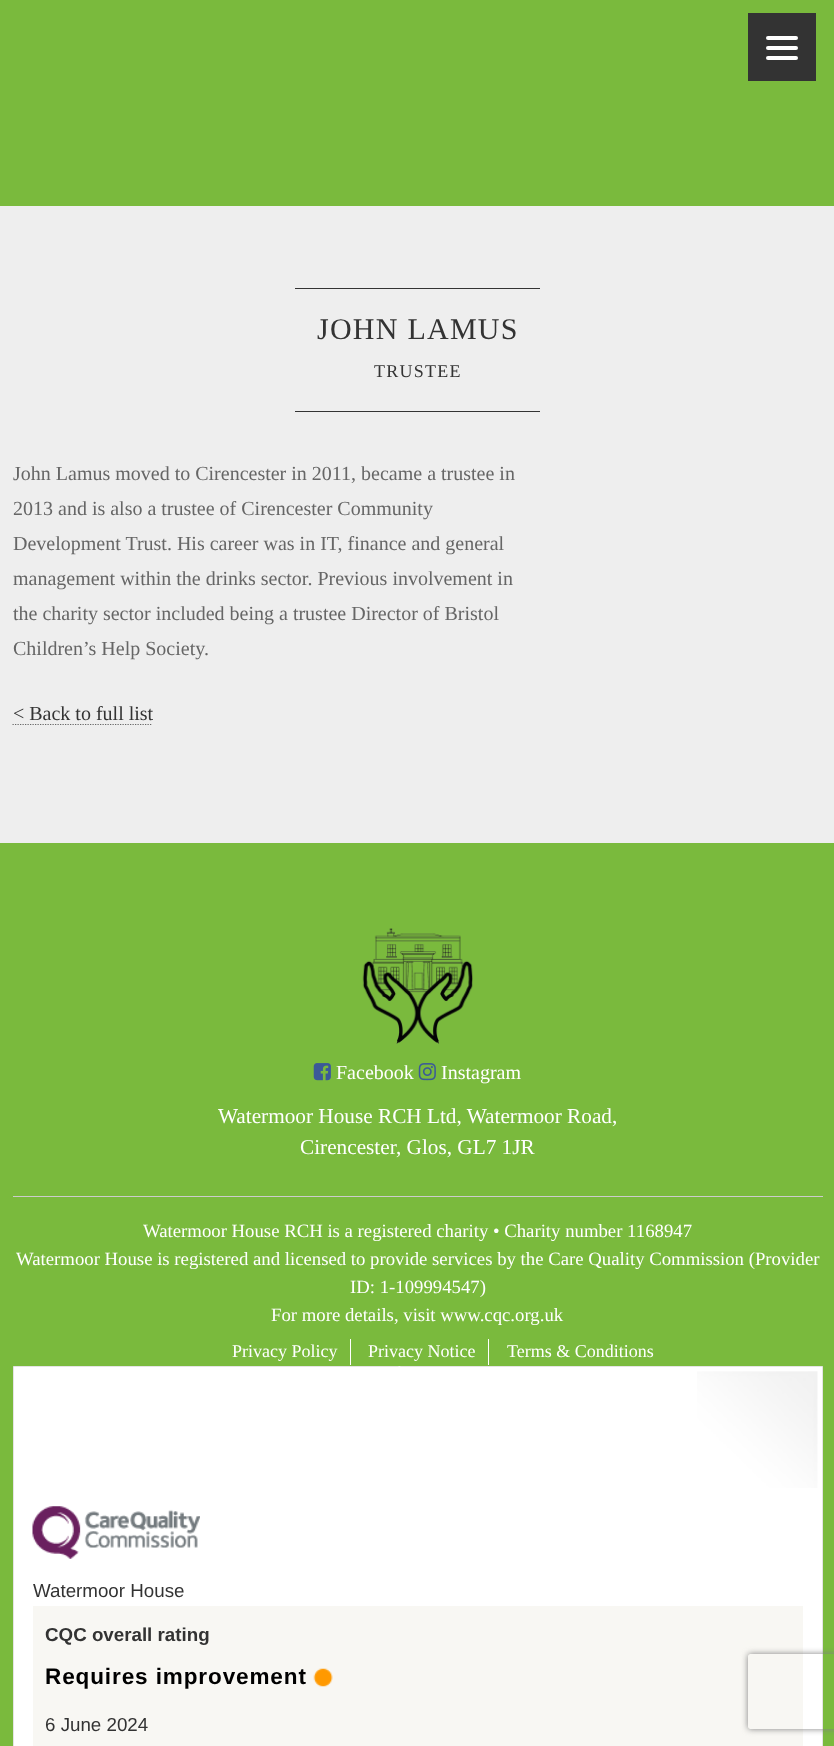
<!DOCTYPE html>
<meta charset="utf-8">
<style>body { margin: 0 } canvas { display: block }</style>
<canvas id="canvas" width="834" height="1746"></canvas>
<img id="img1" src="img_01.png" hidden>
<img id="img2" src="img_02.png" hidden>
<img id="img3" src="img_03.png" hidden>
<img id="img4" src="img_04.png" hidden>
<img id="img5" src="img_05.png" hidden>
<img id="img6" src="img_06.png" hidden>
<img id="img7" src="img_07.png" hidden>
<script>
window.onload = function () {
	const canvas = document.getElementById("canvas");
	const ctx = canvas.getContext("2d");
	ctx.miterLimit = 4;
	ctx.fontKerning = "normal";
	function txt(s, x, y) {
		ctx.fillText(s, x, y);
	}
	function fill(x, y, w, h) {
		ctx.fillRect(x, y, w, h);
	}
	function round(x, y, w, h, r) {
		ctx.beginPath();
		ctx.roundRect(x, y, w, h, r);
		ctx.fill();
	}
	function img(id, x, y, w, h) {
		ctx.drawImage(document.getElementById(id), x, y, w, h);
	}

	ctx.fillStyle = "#EEEEEE";
	fill(0, 0, 834, 1746);
	ctx.fillStyle = "#7ABA3D";
	fill(0, 0, 834, 206);
	ctx.fillStyle = "#333333";
	fill(748, 13, 68, 68);
	ctx.fillStyle = "#FFFFFF";
	round(766, 36, 32, 4, 2);
	round(766, 46, 32, 4, 2);
	round(766, 56, 32, 4, 2);
	ctx.fillStyle = "#333333";
	fill(295, 288, 245, 1);
	fill(295, 411, 245, 1);
	ctx.beginPath();
	ctx.moveTo(12.5, 724.5);
	ctx.lineTo(152.5, 724.5);
	ctx.strokeStyle = "#666666";
	ctx.lineWidth = 1.2;
	ctx.setLineDash([1.25, 1.25]);
	ctx.stroke();
	ctx.fillStyle = "#7ABA3D";
	fill(0, 843, 834, 903);
	img("img1", 362, 928, 111, 116);
	img("img2", 313, 1063, 18, 18);
	img("img3", 418, 1063, 18, 18);
	ctx.fillStyle = "#CCCCCC";
	fill(13, 1196, 810, 1);
	ctx.fillStyle = "#FFFFFF";
	fill(350, 1339, 1, 26);
	fill(488, 1339, 1, 26);
	ctx.beginPath();
	ctx.rect(13.5, 1366.5, 809, 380);
	ctx.fill();
	ctx.strokeStyle = "#E4E4E4";
	ctx.lineWidth = 1;
	ctx.setLineDash([]);
	ctx.stroke();
	img("img4", 398, 1366, 3, 1);
	img("img5", 697, 1371, 121, 117);
	img("img6", 32, 1506, 168, 53);
	ctx.fillStyle = "#F8F7F3";
	fill(33, 1606, 770, 140);
	img("img7", 313, 1668, 20, 19);
	ctx.save();
	ctx.beginPath();
	ctx.moveTo(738, 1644);
	ctx.lineTo(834, 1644);
	ctx.lineTo(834, 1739);
	ctx.lineTo(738, 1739);
	ctx.closePath();
	ctx.moveTo(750.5, 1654);
	ctx.lineTo(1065.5, 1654);
	ctx.bezierCurveTo(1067, 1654, 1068, 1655, 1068, 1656.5);
	ctx.lineTo(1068, 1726.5);
	ctx.bezierCurveTo(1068, 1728, 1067, 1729, 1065.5, 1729);
	ctx.lineTo(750.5, 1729);
	ctx.bezierCurveTo(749, 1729, 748, 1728, 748, 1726.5);
	ctx.lineTo(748, 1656.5);
	ctx.bezierCurveTo(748, 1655, 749, 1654, 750.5, 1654);
	ctx.closePath();
	ctx.clip("evenodd");
	ctx.fillStyle = "#808080";
	ctx.filter = "blur(3px)";
	ctx.beginPath();
	ctx.roundRect(748, 1654, 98, 75, 2.5);
	ctx.fill();
	ctx.filter = "none";
	ctx.restore();
	ctx.letterSpacing = "1.25px";
	ctx.font = "30px Liberation Serif";
	ctx.fillStyle = "#333333";
	txt("JOHN LAMUS", 317, 339);
	ctx.font = "18px Liberation Serif";
	txt("TRUSTEE", 374, 377);
	ctx.letterSpacing = "0px";
	ctx.font = "20px Liberation Serif";
	ctx.fillStyle = "#666666";
	txt("John Lamus moved to Cirencester in 2011, became a trustee in", 13, 480);
	txt("2013 and is also a trustee of Cirencester Community", 13, 515);
	txt("Development Trust. His career was in IT, finance and general", 13, 550);
	txt("management within the drinks sector. Previous involvement in", 13, 585);
	txt("the charity sector included being a trustee Director of Bristol", 13, 620);
	txt("Children’s Help Society.", 13, 655);
	ctx.fillStyle = "#333333";
	txt("< Back to full list", 13, 720);
	ctx.fillStyle = "#FFFFFF";
	txt("Facebook", 336, 1079);
	txt("Instagram", 441, 1079);
	ctx.font = "21.25px Liberation Serif";
	txt("Watermoor House RCH Ltd, Watermoor Road,", 218, 1123);
	txt("Cirencester, Glos, GL7 1JR", 300, 1154);
	ctx.font = "18.75px Liberation Serif";
	txt("Watermoor House RCH is a registered charity • Charity number 1168947", 143, 1237);
	txt("Watermoor House is registered and licensed to provide services by the Care Quality Commission (Provider", 16, 1265);
	txt("ID: 1-109994547)", 350, 1293);
	txt("For more details, visit www.cqc.org.uk", 271, 1321);
	ctx.font = "18px Liberation Serif";
	txt("Privacy Policy", 232, 1357);
	txt("Privacy Notice", 368, 1357);
	txt("Terms & Conditions", 507, 1357);
	ctx.font = "18.75px Liberation Sans";
	ctx.fillStyle = "#333333";
	txt("Watermoor House", 33, 1597);
	ctx.font = "bold 18.75px Liberation Sans";
	txt("CQC overall rating", 45, 1641);
	ctx.letterSpacing = "0.9px";
	ctx.font = "bold 22.5px Liberation Sans";
	ctx.fillStyle = "#000000";
	txt("Requires improvement", 45, 1684);
	ctx.letterSpacing = "0px";
	ctx.font = "18.75px Liberation Sans";
	ctx.fillStyle = "#333333";
	txt("6 June 2024", 45, 1731);
};
</script>
